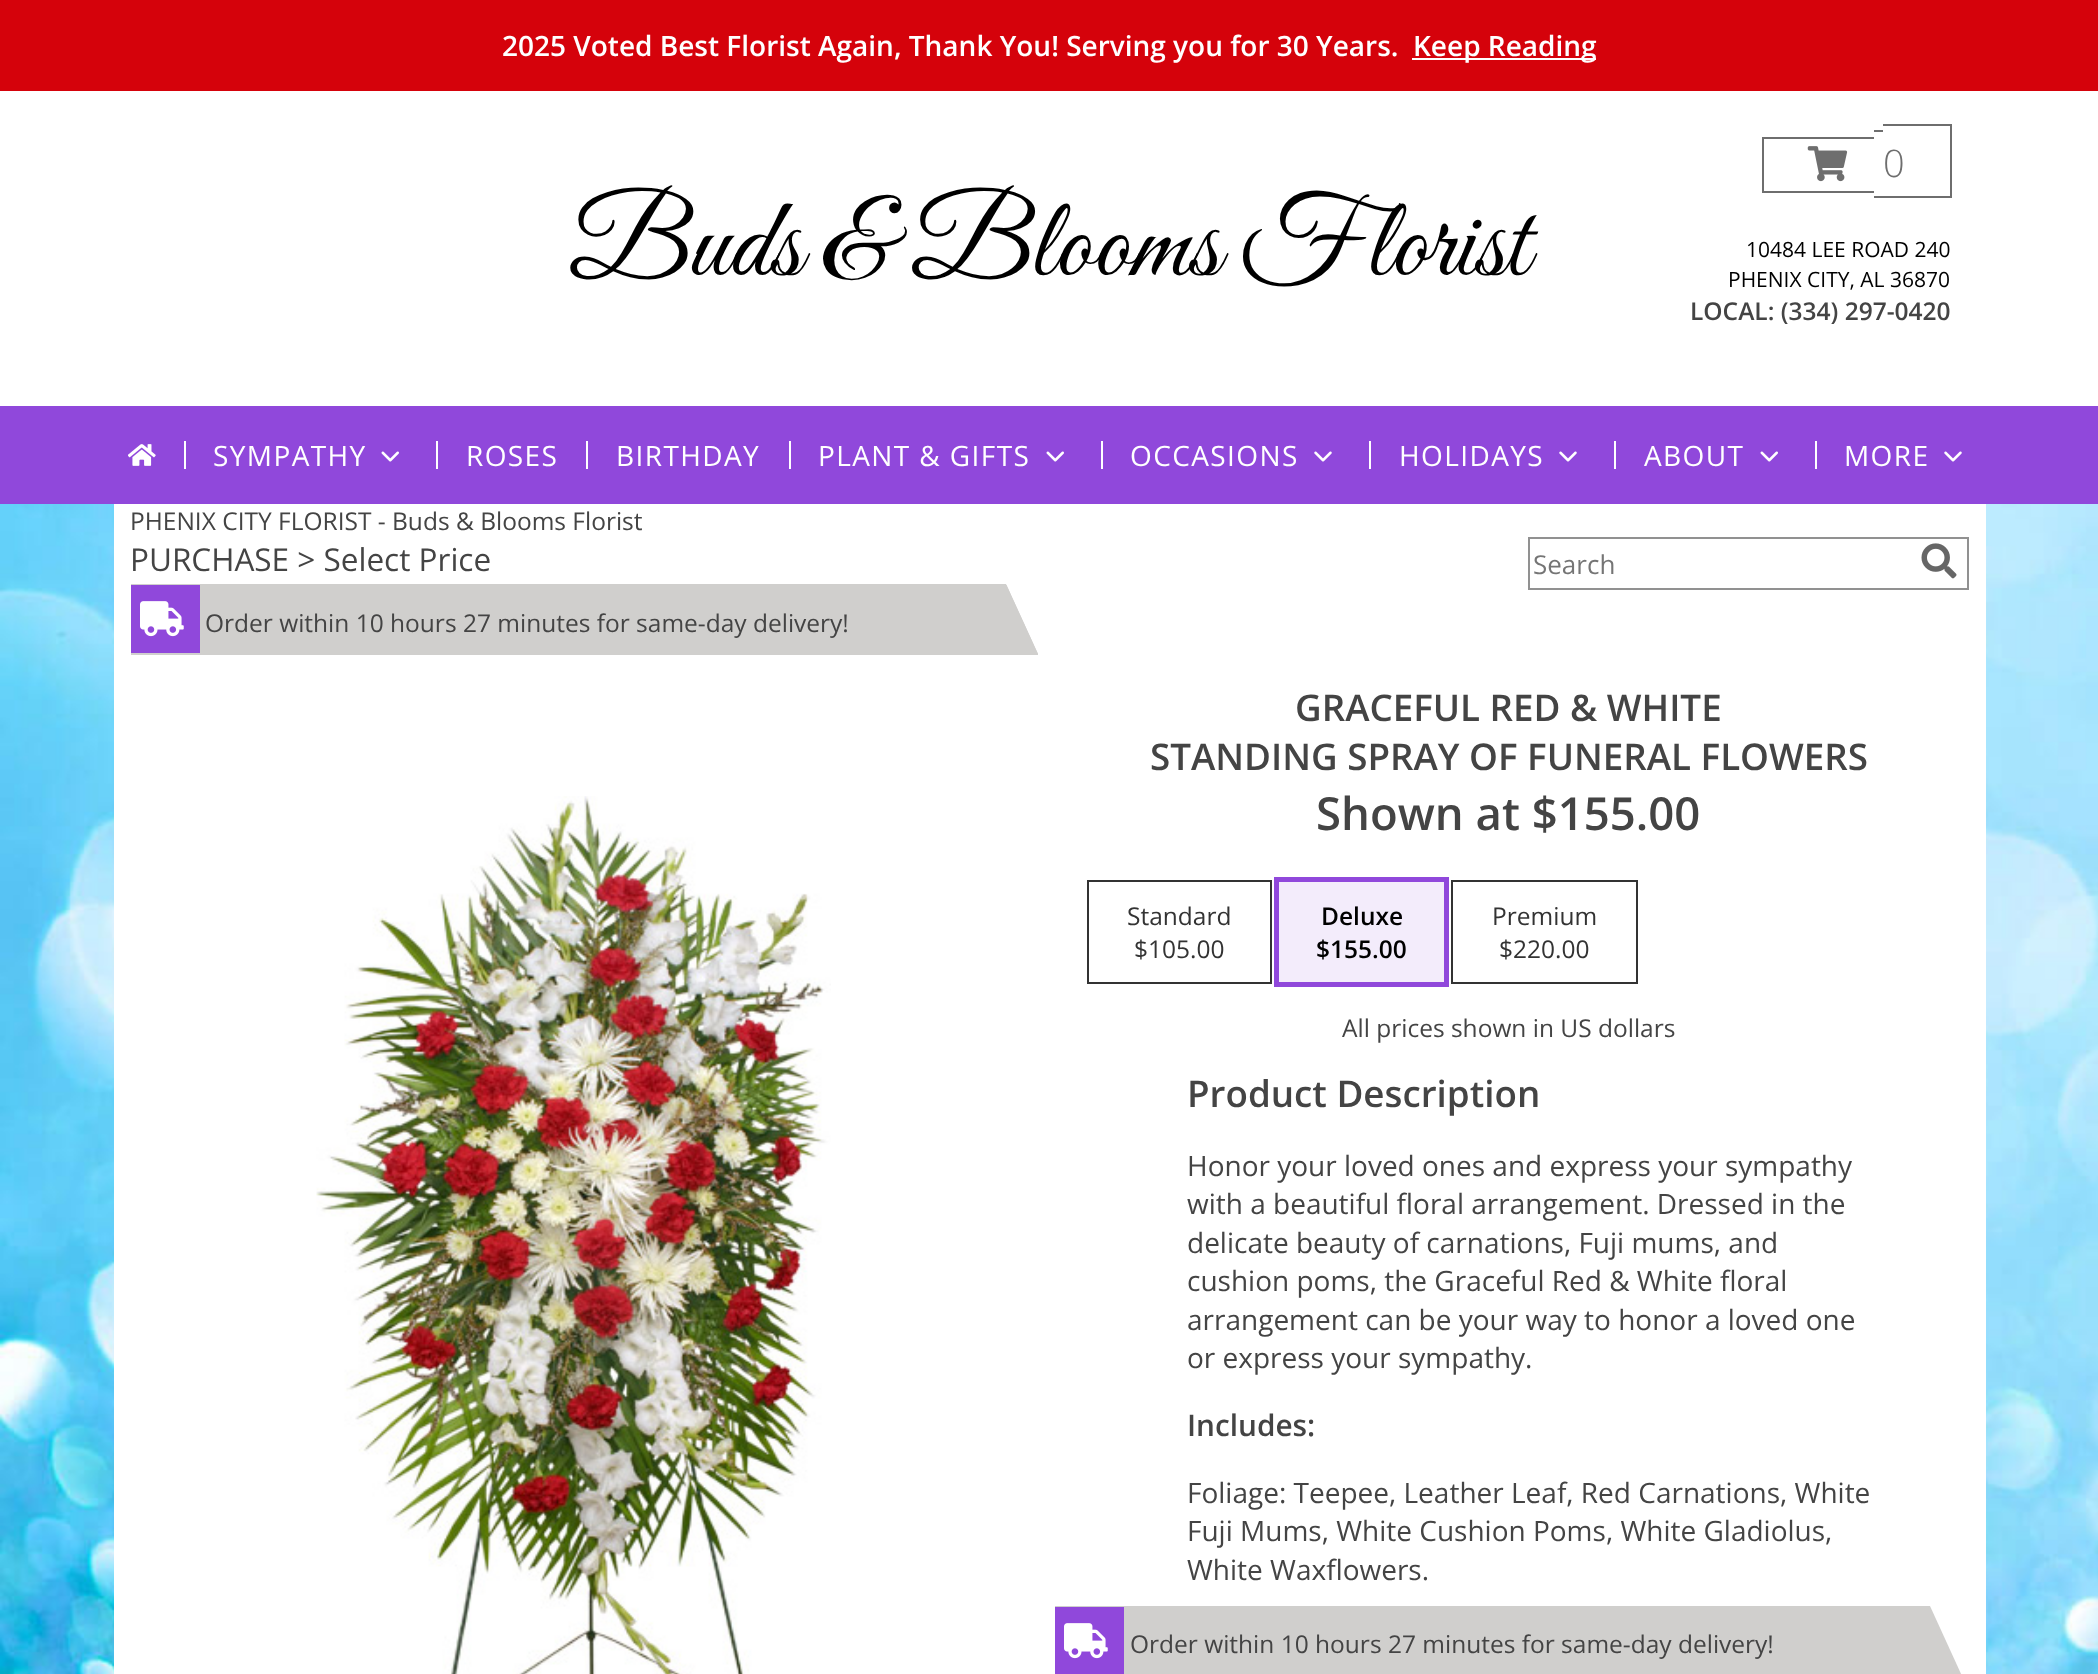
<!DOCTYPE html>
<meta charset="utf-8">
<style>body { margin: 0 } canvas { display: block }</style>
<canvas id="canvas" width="2098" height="1674"></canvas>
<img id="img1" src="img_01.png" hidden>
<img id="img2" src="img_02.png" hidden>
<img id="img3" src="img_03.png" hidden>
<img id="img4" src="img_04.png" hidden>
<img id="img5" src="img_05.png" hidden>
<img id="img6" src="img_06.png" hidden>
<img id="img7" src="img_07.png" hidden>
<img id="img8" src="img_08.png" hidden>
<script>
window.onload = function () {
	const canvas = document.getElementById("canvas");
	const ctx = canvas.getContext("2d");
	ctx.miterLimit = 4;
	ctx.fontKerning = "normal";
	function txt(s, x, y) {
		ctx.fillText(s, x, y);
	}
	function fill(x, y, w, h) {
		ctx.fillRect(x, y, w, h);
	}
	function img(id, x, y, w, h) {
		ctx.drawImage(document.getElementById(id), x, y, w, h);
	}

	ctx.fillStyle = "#FFFFFF";
	fill(0, 0, 2098, 1674);
	img("img1", 0, 504, 2098, 1170);
	fill(114, 504, 1872, 1170);
	ctx.fillStyle = "#D5020B";
	fill(0, 0, 2098, 91);
	ctx.fillStyle = "#FFFFFF";
	fill(1412, 58, 184, 2);
	ctx.fillStyle = "#6E6E6E";
	fill(1762, 137, 112, 2);
	fill(1762, 191, 112, 2);
	fill(1762, 137, 2, 56);
	fill(1874, 130, 9, 2);
	fill(1874, 196, 9, 2);
	fill(1883, 124, 68, 2);
	fill(1950, 124, 2, 74);
	fill(1883, 196, 68, 2);
	img("img2", 1807, 146, 41, 36);
	ctx.fillStyle = "#9048DB";
	fill(0, 406, 2098, 98);
	img("img3", 128, 444, 28, 22);
	ctx.fillStyle = "#FFFFFF";
	fill(184, 441, 2, 28);
	img("img4", 381, 451, 18, 11);
	fill(436, 441, 2, 28);
	fill(586, 441, 2, 28);
	fill(789, 441, 2, 28);
	img("img4", 1046, 451, 18, 11);
	fill(1101, 441, 2, 28);
	img("img5", 1314, 451, 18, 11);
	fill(1369, 441, 2, 28);
	img("img5", 1559, 451, 18, 11);
	fill(1614, 441, 2, 28);
	img("img4", 1760, 451, 18, 11);
	fill(1815, 441, 2, 28);
	img("img5", 1944, 451, 18, 11);
	ctx.strokeStyle = "#919191";
	ctx.lineWidth = 2;
	ctx.strokeRect(1529, 538, 439, 51);
	img("img6", 1921, 543, 36, 36);
	ctx.fillStyle = "#D0CFCD";
	fill(131, 585, 907, 70);
	ctx.fillStyle = "#FFFFFF";
	ctx.beginPath();
	ctx.moveTo(1038, 584);
	ctx.lineTo(1038, 654);
	ctx.lineTo(1006, 584);
	ctx.closePath();
	ctx.fill();
	ctx.fillStyle = "#D0CFCD";
	ctx.beginPath();
	ctx.moveTo(1038, 654);
	ctx.lineTo(131, 654);
	ctx.lineTo(131, 584);
	ctx.lineTo(1006, 584);
	ctx.closePath();
	ctx.fill();
	ctx.fillStyle = "#9048DB";
	fill(131, 585, 69, 68);
	img("img7", 140, 601, 44, 36);
	img("img8", 316, 796, 515, 878);
	ctx.strokeStyle = "#333333";
	ctx.strokeRect(1088, 881, 183, 102);
	ctx.strokeStyle = "#9048DB";
	ctx.lineWidth = 5;
	ctx.strokeRect(1276.5, 879.5, 170, 105);
	ctx.fillStyle = "#F3ECFB";
	fill(1279, 882, 165, 100);
	ctx.strokeStyle = "#333333";
	ctx.lineWidth = 2;
	ctx.strokeRect(1452, 881, 185, 102);
	ctx.fillStyle = "#D0CFCD";
	ctx.beginPath();
	ctx.moveTo(1962, 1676);
	ctx.lineTo(1055, 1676);
	ctx.lineTo(1055, 1606);
	ctx.lineTo(1930, 1606);
	ctx.closePath();
	ctx.fill();
	ctx.fillStyle = "#9048DB";
	fill(1055, 1607, 69, 67);
	img("img7", 1064, 1623, 44, 36);
	ctx.font = "600 28px Open Sans";
	ctx.fillStyle = "#FFFFFF";
	txt("2025 Voted Best Florist Again, Thank You! Serving you for 30 Years.", 502, 56);
	txt("Keep Reading", 1413, 56);
	ctx.font = "113.75px Great Vibes";
	ctx.fillStyle = "#000000";
	txt("Buds & Blooms Florist", 569, 275);
	ctx.font = "300 38px Open Sans";
	ctx.fillStyle = "#6E6E6E";
	txt("0", 1883, 177);
	ctx.font = "21px Open Sans";
	ctx.fillStyle = "#000000";
	txt("10484 LEE ROAD 240", 1746, 257);
	txt("PHENIX CITY, AL 36870", 1728, 287);
	ctx.font = "600 24.5px Open Sans";
	ctx.fillStyle = "#444444";
	txt("LOCAL: (334) 297-0420", 1690, 320);
	ctx.letterSpacing = "1.4px";
	ctx.font = "28px Open Sans";
	ctx.fillStyle = "#FFFFFF";
	txt("SYMPATHY", 213, 466);
	txt("ROSES", 466, 466);
	txt("BIRTHDAY", 616, 466);
	txt("PLANT & GIFTS", 818, 466);
	txt("OCCASIONS", 1130, 466);
	txt("HOLIDAYS", 1399, 466);
	txt("ABOUT", 1644, 466);
	txt("MORE", 1844, 466);
	ctx.letterSpacing = "0px";
	ctx.font = "24.5px Open Sans";
	ctx.fillStyle = "#444444";
	txt("PHENIX CITY FLORIST - Buds & Blooms Florist", 130, 530);
	ctx.font = "31.5px Open Sans";
	txt("PURCHASE > Select Price", 130, 571);
	ctx.font = "26px Open Sans";
	ctx.fillStyle = "#757575";
	txt("Search", 1533, 574);
	ctx.font = "24.5px Open Sans";
	ctx.fillStyle = "#444444";
	txt("Order within 10 hours 27 minutes for same-day delivery!", 205, 632);
	ctx.font = "600 36.75px Open Sans";
	txt("GRACEFUL RED & WHITE", 1295, 721);
	txt("STANDING SPRAY OF FUNERAL FLOWERS", 1150, 770);
	ctx.font = "600 45.5px Open Sans";
	txt("Shown at $155.00", 1316, 830);
	ctx.font = "24.5px Open Sans";
	ctx.fillStyle = "#333333";
	txt("Standard", 1127, 925);
	txt("$105.00", 1134, 958);
	ctx.font = "600 24.5px Open Sans";
	ctx.fillStyle = "#000000";
	txt("Deluxe", 1321, 925);
	txt("$155.00", 1316, 958);
	ctx.font = "24.5px Open Sans";
	ctx.fillStyle = "#333333";
	txt("Premium", 1492, 925);
	txt("$220.00", 1499, 958);
	ctx.fillStyle = "#444444";
	txt("All prices shown in US dollars", 1342, 1037);
	ctx.font = "600 36.75px Open Sans";
	txt("Product Description", 1187, 1107);
	ctx.font = "28px Open Sans";
	txt("Honor your loved ones and express your sympathy", 1187, 1176);
	txt("with a beautiful floral arrangement. Dressed in the", 1187, 1214);
	txt("delicate beauty of carnations, Fuji mums, and", 1187, 1253);
	txt("cushion poms, the Graceful Red & White floral", 1187, 1291);
	txt("arrangement can be your way to honor a loved one", 1187, 1330);
	txt("or express your sympathy.", 1187, 1368);
	ctx.font = "600 29.75px Open Sans";
	txt("Includes:", 1187, 1436);
	ctx.font = "28px Open Sans";
	txt("Foliage: Teepee, Leather Leaf, Red Carnations, White", 1187, 1503);
	txt("Fuji Mums, White Cushion Poms, White Gladiolus,", 1187, 1541);
	txt("White Waxflowers.", 1187, 1580);
	ctx.font = "24.5px Open Sans";
	txt("Order within 10 hours 27 minutes for same-day delivery!", 1130, 1653);
};
</script>
